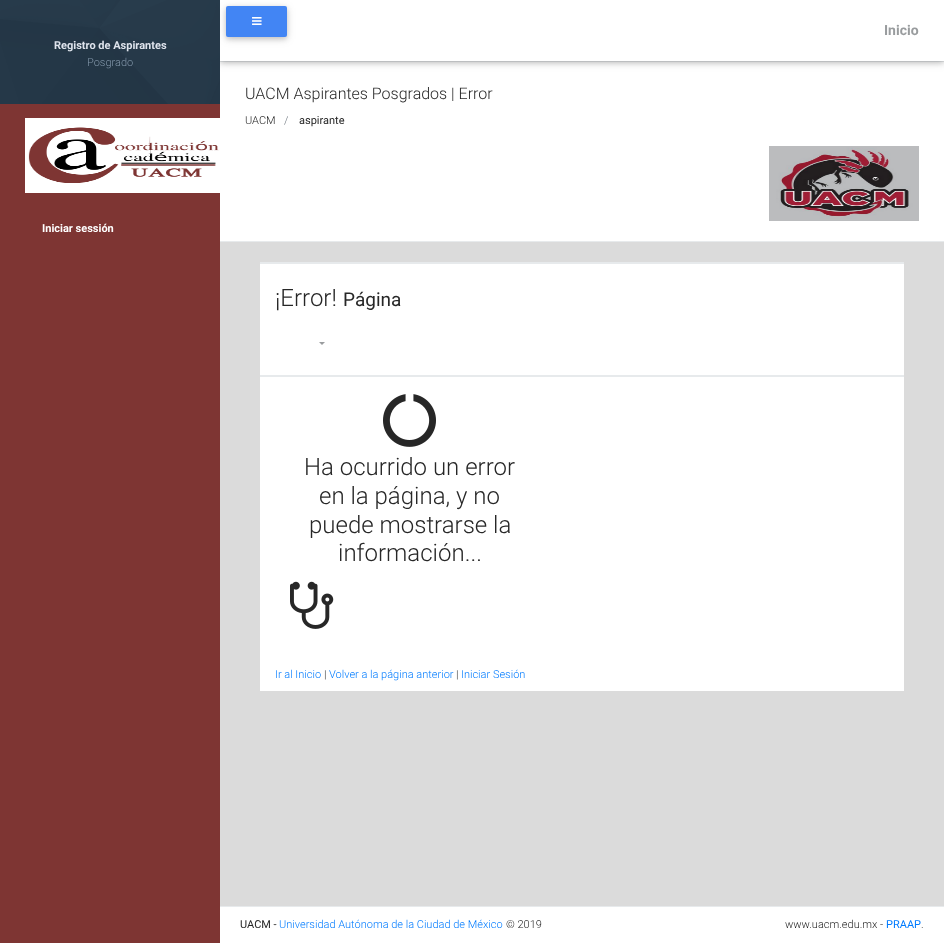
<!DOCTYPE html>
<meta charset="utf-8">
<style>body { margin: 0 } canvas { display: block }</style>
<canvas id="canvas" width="944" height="943"></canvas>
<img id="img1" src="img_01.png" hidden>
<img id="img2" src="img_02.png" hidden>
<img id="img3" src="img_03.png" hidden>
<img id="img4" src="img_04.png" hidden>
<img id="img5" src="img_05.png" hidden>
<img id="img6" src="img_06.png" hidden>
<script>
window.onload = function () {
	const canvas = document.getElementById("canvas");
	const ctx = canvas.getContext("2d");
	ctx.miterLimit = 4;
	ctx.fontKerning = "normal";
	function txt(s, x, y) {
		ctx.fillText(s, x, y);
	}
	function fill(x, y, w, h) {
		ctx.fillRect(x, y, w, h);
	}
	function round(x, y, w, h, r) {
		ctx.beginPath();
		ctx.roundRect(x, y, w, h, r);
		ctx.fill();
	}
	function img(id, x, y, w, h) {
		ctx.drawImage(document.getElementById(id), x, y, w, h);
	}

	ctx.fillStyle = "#7E3533";
	fill(0, 0, 944, 943);
	ctx.fillStyle = "#E7EAEC";
	fill(220, 61, 724, 1);
	ctx.fillStyle = "#FFFFFF";
	fill(220, 62, 724, 179);
	ctx.fillStyle = "rgba(0, 0, 0, 0.12)";
	ctx.filter = "blur(5px)";
	ctx.beginPath();
	ctx.rect(220, 2, 724, 61);
	ctx.fill();
	ctx.filter = "none";
	ctx.fillStyle = "rgba(0, 0, 0, 0.16)";
	ctx.filter = "blur(2.5px)";
	ctx.beginPath();
	ctx.rect(220, 2, 724, 61);
	ctx.fill();
	ctx.filter = "none";
	ctx.fillStyle = "#FFFFFF";
	fill(220, 0, 724, 61);
	ctx.fillStyle = "rgba(0, 0, 0, 0.12)";
	ctx.filter = "blur(5px)";
	ctx.beginPath();
	ctx.roundRect(226, 8, 61, 31, 2);
	ctx.fill();
	ctx.filter = "none";
	ctx.fillStyle = "rgba(0, 0, 0, 0.16)";
	ctx.filter = "blur(2.5px)";
	ctx.beginPath();
	ctx.roundRect(226, 8, 61, 31, 2);
	ctx.fill();
	ctx.filter = "none";
	img("img1", 0, 0, 220, 104);
	img("img2", 25, 118, 195, 75);
	ctx.fillStyle = "#DBDBDB";
	fill(220, 242, 724, 664);
	ctx.fillStyle = "#4285F4";
	round(226, 6, 61, 31, 2);
	img("img3", 252, 17, 10, 8);
	ctx.fillStyle = "#E7EAEC";
	fill(220, 241, 724, 1);
	img("img4", 769, 146, 150, 75);
	ctx.fillStyle = "#FFFFFF";
	fill(260, 264, 644, 111);
	ctx.fillStyle = "#E7EAEC";
	fill(260, 262, 644, 2);
	ctx.fillStyle = "#999C9E";
	ctx.beginPath();
	ctx.moveTo(319, 342);
	ctx.lineTo(325, 342);
	ctx.lineTo(322, 345);
	ctx.closePath();
	ctx.fill();
	ctx.fillStyle = "#FFFFFF";
	fill(260, 377, 644, 314);
	ctx.fillStyle = "#E7EAEC";
	fill(260, 375, 644, 2);
	img("img5", 383, 394, 53, 53);
	img("img6", 290, 581, 44, 48);
	ctx.fillStyle = "#FFFFFF";
	fill(220, 907, 724, 36);
	ctx.fillStyle = "#E7EAEC";
	fill(220, 906, 724, 1);
	ctx.font = "bold 11px Roboto";
	ctx.fillStyle = "#DFE4ED";
	txt("Registro de Aspirantes", 54, 49);
	ctx.font = "300 11px Roboto";
	ctx.fillStyle = "#8095A8";
	txt("Posgrado", 87, 66);
	ctx.font = "bold 11px Roboto";
	ctx.fillStyle = "#FFFFFF";
	txt("Iniciar sessión", 42, 232);
	ctx.font = "bold 14px Roboto";
	ctx.fillStyle = "#999C9E";
	txt("Inicio", 884, 35);
	ctx.font = "300 16px Roboto";
	ctx.fillStyle = "#272727";
	txt("UACM Aspirantes Posgrados | Error", 245, 99);
	ctx.font = "300 11px Roboto";
	txt("UACM", 245, 124);
	ctx.fillStyle = "#6C757D";
	txt("/", 284, 124);
	ctx.font = "11px Roboto";
	ctx.fillStyle = "#272727";
	txt("aspirante", 299, 124);
	ctx.font = "300 24px Roboto";
	txt("¡Error!", 275, 306);
	ctx.font = "19px Roboto";
	txt("Página", 343, 306);
	ctx.font = "300 24px Roboto";
	txt("Ha ocurrido un error", 304, 475);
	txt("en la página, y no", 319, 504);
	txt("puede mostrarse la", 309, 533);
	txt("información...", 338, 561);
	ctx.font = "300 11px Roboto";
	ctx.fillStyle = "#007BFF";
	txt("Ir al Inicio", 275, 678);
	ctx.fillStyle = "#272727";
	txt("|", 324, 678);
	ctx.fillStyle = "#007BFF";
	txt("Volver a la página anterior", 329, 678);
	ctx.fillStyle = "#272727";
	txt("|", 456, 678);
	ctx.fillStyle = "#007BFF";
	txt("Iniciar Sesión", 461, 678);
	ctx.font = "11px Roboto";
	ctx.fillStyle = "#272727";
	txt("UACM -", 240, 928);
	ctx.font = "300 11px Roboto";
	ctx.fillStyle = "#007BFF";
	txt("Universidad Autónoma de la Ciudad de México", 279, 928);
	ctx.fillStyle = "#272727";
	txt("© 2019", 506, 928);
	txt("www.uacm.edu.mx -", 785, 928);
	ctx.font = "11px Roboto";
	ctx.fillStyle = "#007BFF";
	txt("PRAAP", 886, 928);
	ctx.font = "300 11px Roboto";
	ctx.fillStyle = "#272727";
	txt(".", 921, 928);
};
</script>
